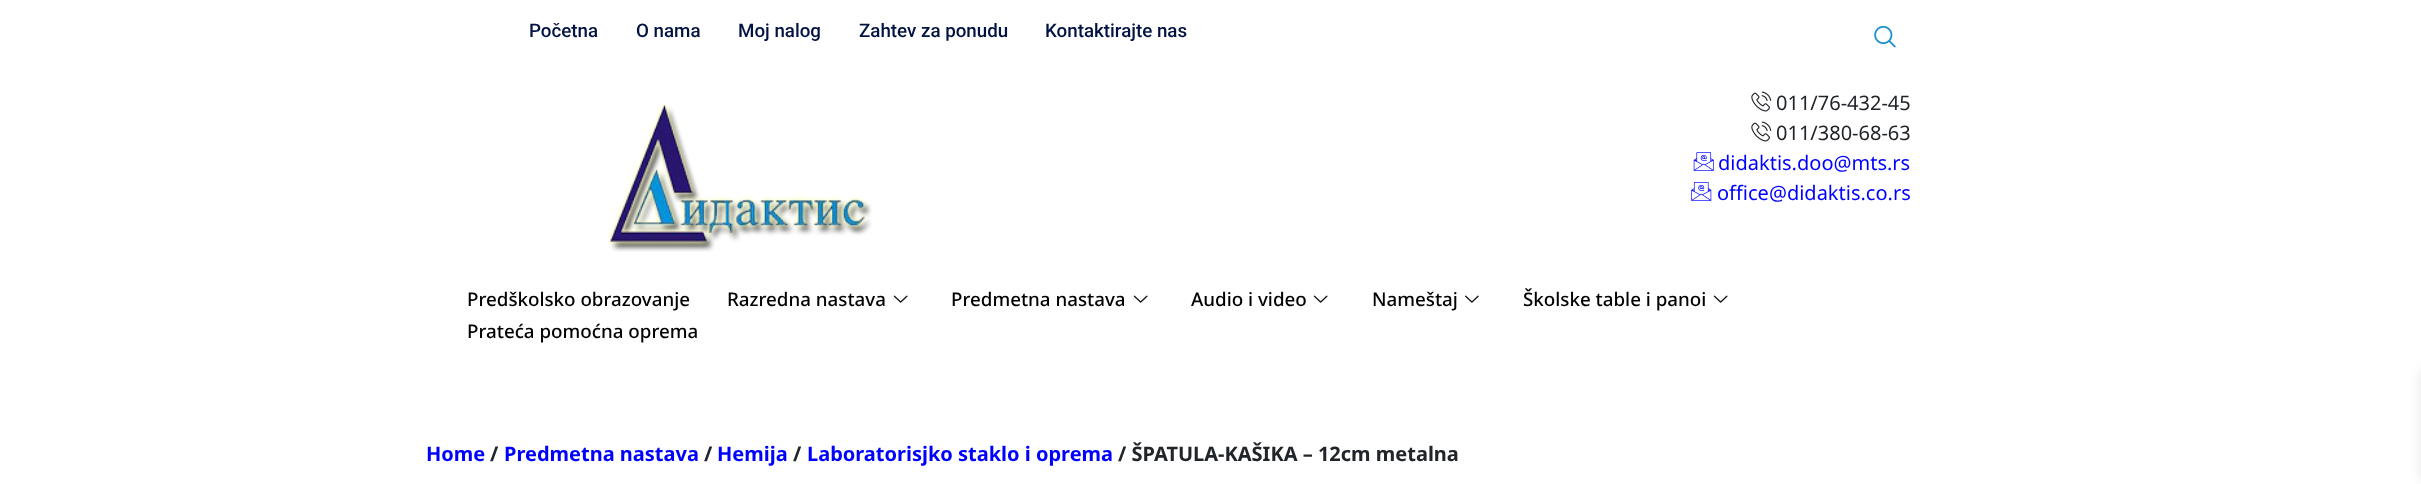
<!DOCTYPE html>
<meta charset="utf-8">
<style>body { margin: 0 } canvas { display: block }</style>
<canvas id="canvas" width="2421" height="484"></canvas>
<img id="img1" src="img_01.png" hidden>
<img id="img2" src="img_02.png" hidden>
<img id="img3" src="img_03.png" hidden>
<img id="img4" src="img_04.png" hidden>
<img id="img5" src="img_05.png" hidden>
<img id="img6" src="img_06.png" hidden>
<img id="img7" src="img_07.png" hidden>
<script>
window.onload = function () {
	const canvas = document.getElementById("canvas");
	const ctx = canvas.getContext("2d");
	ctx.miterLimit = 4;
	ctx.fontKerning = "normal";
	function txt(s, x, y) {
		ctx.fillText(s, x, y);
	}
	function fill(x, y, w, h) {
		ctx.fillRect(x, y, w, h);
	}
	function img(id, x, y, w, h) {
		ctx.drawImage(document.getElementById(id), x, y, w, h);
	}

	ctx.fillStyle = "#FFFFFF";
	fill(0, 0, 2421, 484);
	img("img1", 1874, 25, 22, 23);
	img("img2", 607, 103, 265, 149);
	img("img3", 1751, 91, 21, 21);
	img("img3", 1751, 121, 21, 21);
	img("img4", 1693, 152, 21, 19);
	img("img5", 1691, 182, 21, 19);
	img("img6", 893, 295, 15, 8);
	img("img6", 1133, 295, 15, 8);
	img("img6", 1313, 295, 15, 8);
	img("img7", 1465, 295, 14, 8);
	img("img6", 1713, 295, 15, 8);
	ctx.fillStyle = "rgba(0, 0, 0, 0.1)";
	ctx.filter = "blur(6px)";
	ctx.beginPath();
	ctx.rect(2421, 370, 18, 109);
	ctx.fill();
	ctx.filter = "none";
	ctx.font = "500 18.75px Roboto";
	ctx.fillStyle = "#021343";
	txt("Početna", 529, 37);
	txt("O nama", 636, 37);
	txt("Moj nalog", 738, 37);
	txt("Zahtev za ponudu", 859, 37);
	txt("Kontaktirajte nas", 1045, 37);
	ctx.font = "20px Noto Sans";
	ctx.fillStyle = "#212529";
	txt("011/76-432-45", 1776, 110);
	txt("011/380-68-63", 1776, 140);
	ctx.fillStyle = "#0000FF";
	txt("didaktis.doo@mts.rs", 1718, 170);
	txt("office@didaktis.co.rs", 1717, 200);
	ctx.font = "500 18.75px Noto Sans";
	ctx.fillStyle = "#000000";
	txt("Predškolsko obrazovanje", 467, 306);
	txt("Razredna nastava", 727, 306);
	txt("Predmetna nastava", 951, 306);
	txt("Audio i video", 1191, 306);
	txt("Nameštaj", 1372, 306);
	txt("Školske table i panoi", 1523, 306);
	txt("Prateća pomoćna oprema", 467, 338);
	ctx.font = "bold 20px Noto Sans";
	ctx.fillStyle = "#0000FF";
	txt("Home", 426, 461);
	ctx.fillStyle = "#212529";
	txt("/", 490, 461);
	ctx.fillStyle = "#0000FF";
	txt("Predmetna nastava", 504, 461);
	ctx.fillStyle = "#212529";
	txt("/", 704, 461);
	ctx.fillStyle = "#0000FF";
	txt("Hemija", 717, 461);
	ctx.fillStyle = "#212529";
	txt("/", 793, 461);
	ctx.fillStyle = "#0000FF";
	txt("Laboratorisjko staklo i oprema", 807, 461);
	ctx.fillStyle = "#212529";
	txt("/ ŠPATULA-KAŠIKA – 12cm metalna", 1118, 461);
};
</script>
